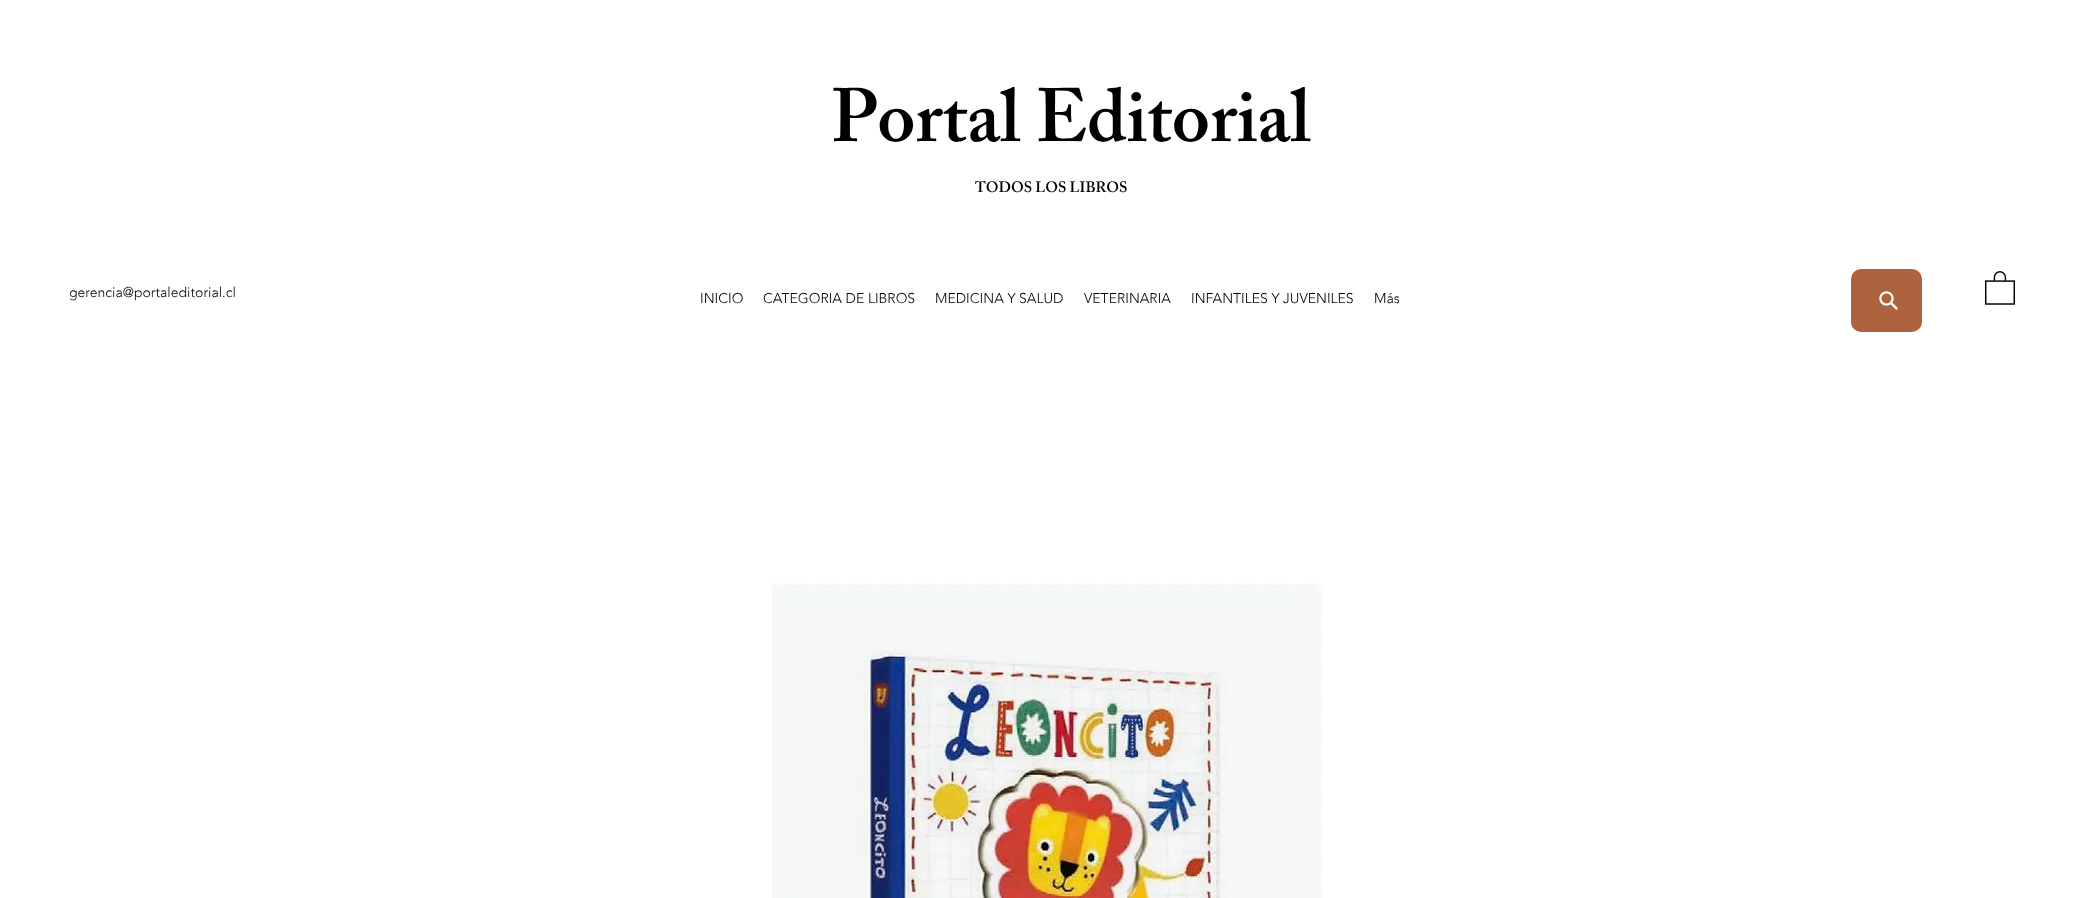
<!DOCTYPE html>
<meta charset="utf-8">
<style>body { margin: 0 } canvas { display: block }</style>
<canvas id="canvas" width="2095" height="898"></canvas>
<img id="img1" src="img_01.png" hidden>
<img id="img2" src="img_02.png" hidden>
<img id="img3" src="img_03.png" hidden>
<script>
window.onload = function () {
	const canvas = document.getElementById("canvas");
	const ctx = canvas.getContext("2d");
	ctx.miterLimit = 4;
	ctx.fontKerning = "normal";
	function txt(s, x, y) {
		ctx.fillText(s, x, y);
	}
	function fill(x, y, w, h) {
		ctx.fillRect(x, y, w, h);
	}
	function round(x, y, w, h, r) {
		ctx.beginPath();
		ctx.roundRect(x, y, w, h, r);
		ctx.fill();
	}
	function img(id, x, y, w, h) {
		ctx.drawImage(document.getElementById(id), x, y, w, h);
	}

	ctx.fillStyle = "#FFFFFF";
	fill(0, 0, 2095, 898);
	ctx.fillStyle = "#AE633F";
	round(1851, 269, 71, 63, 10);
	img("img1", 1879, 291, 19, 19);
	img("img2", 1985, 271, 30, 34);
	img("img3", 772, 583, 551, 315);
	ctx.font = "600 75px 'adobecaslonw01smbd'";
	ctx.fillStyle = "#000000";
	txt("Portal Editorial", 831, 141);
	ctx.font = "600 15px 'adobecaslonw01smbd'";
	txt("TODOS LOS LIBROS", 975, 192);
	ctx.font = "300 14px 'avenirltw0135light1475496'";
	txt("gerencia@portaleditorial.cl", 69, 297);
	txt("INICIO", 700, 303);
	txt("CATEGORIA DE LIBROS", 763, 303);
	txt("MEDICINA Y SALUD", 935, 303);
	txt("VETERINARIA", 1084, 303);
	txt("INFANTILES Y JUVENILES", 1191, 303);
	txt("Más", 1374, 303);
};
</script>
